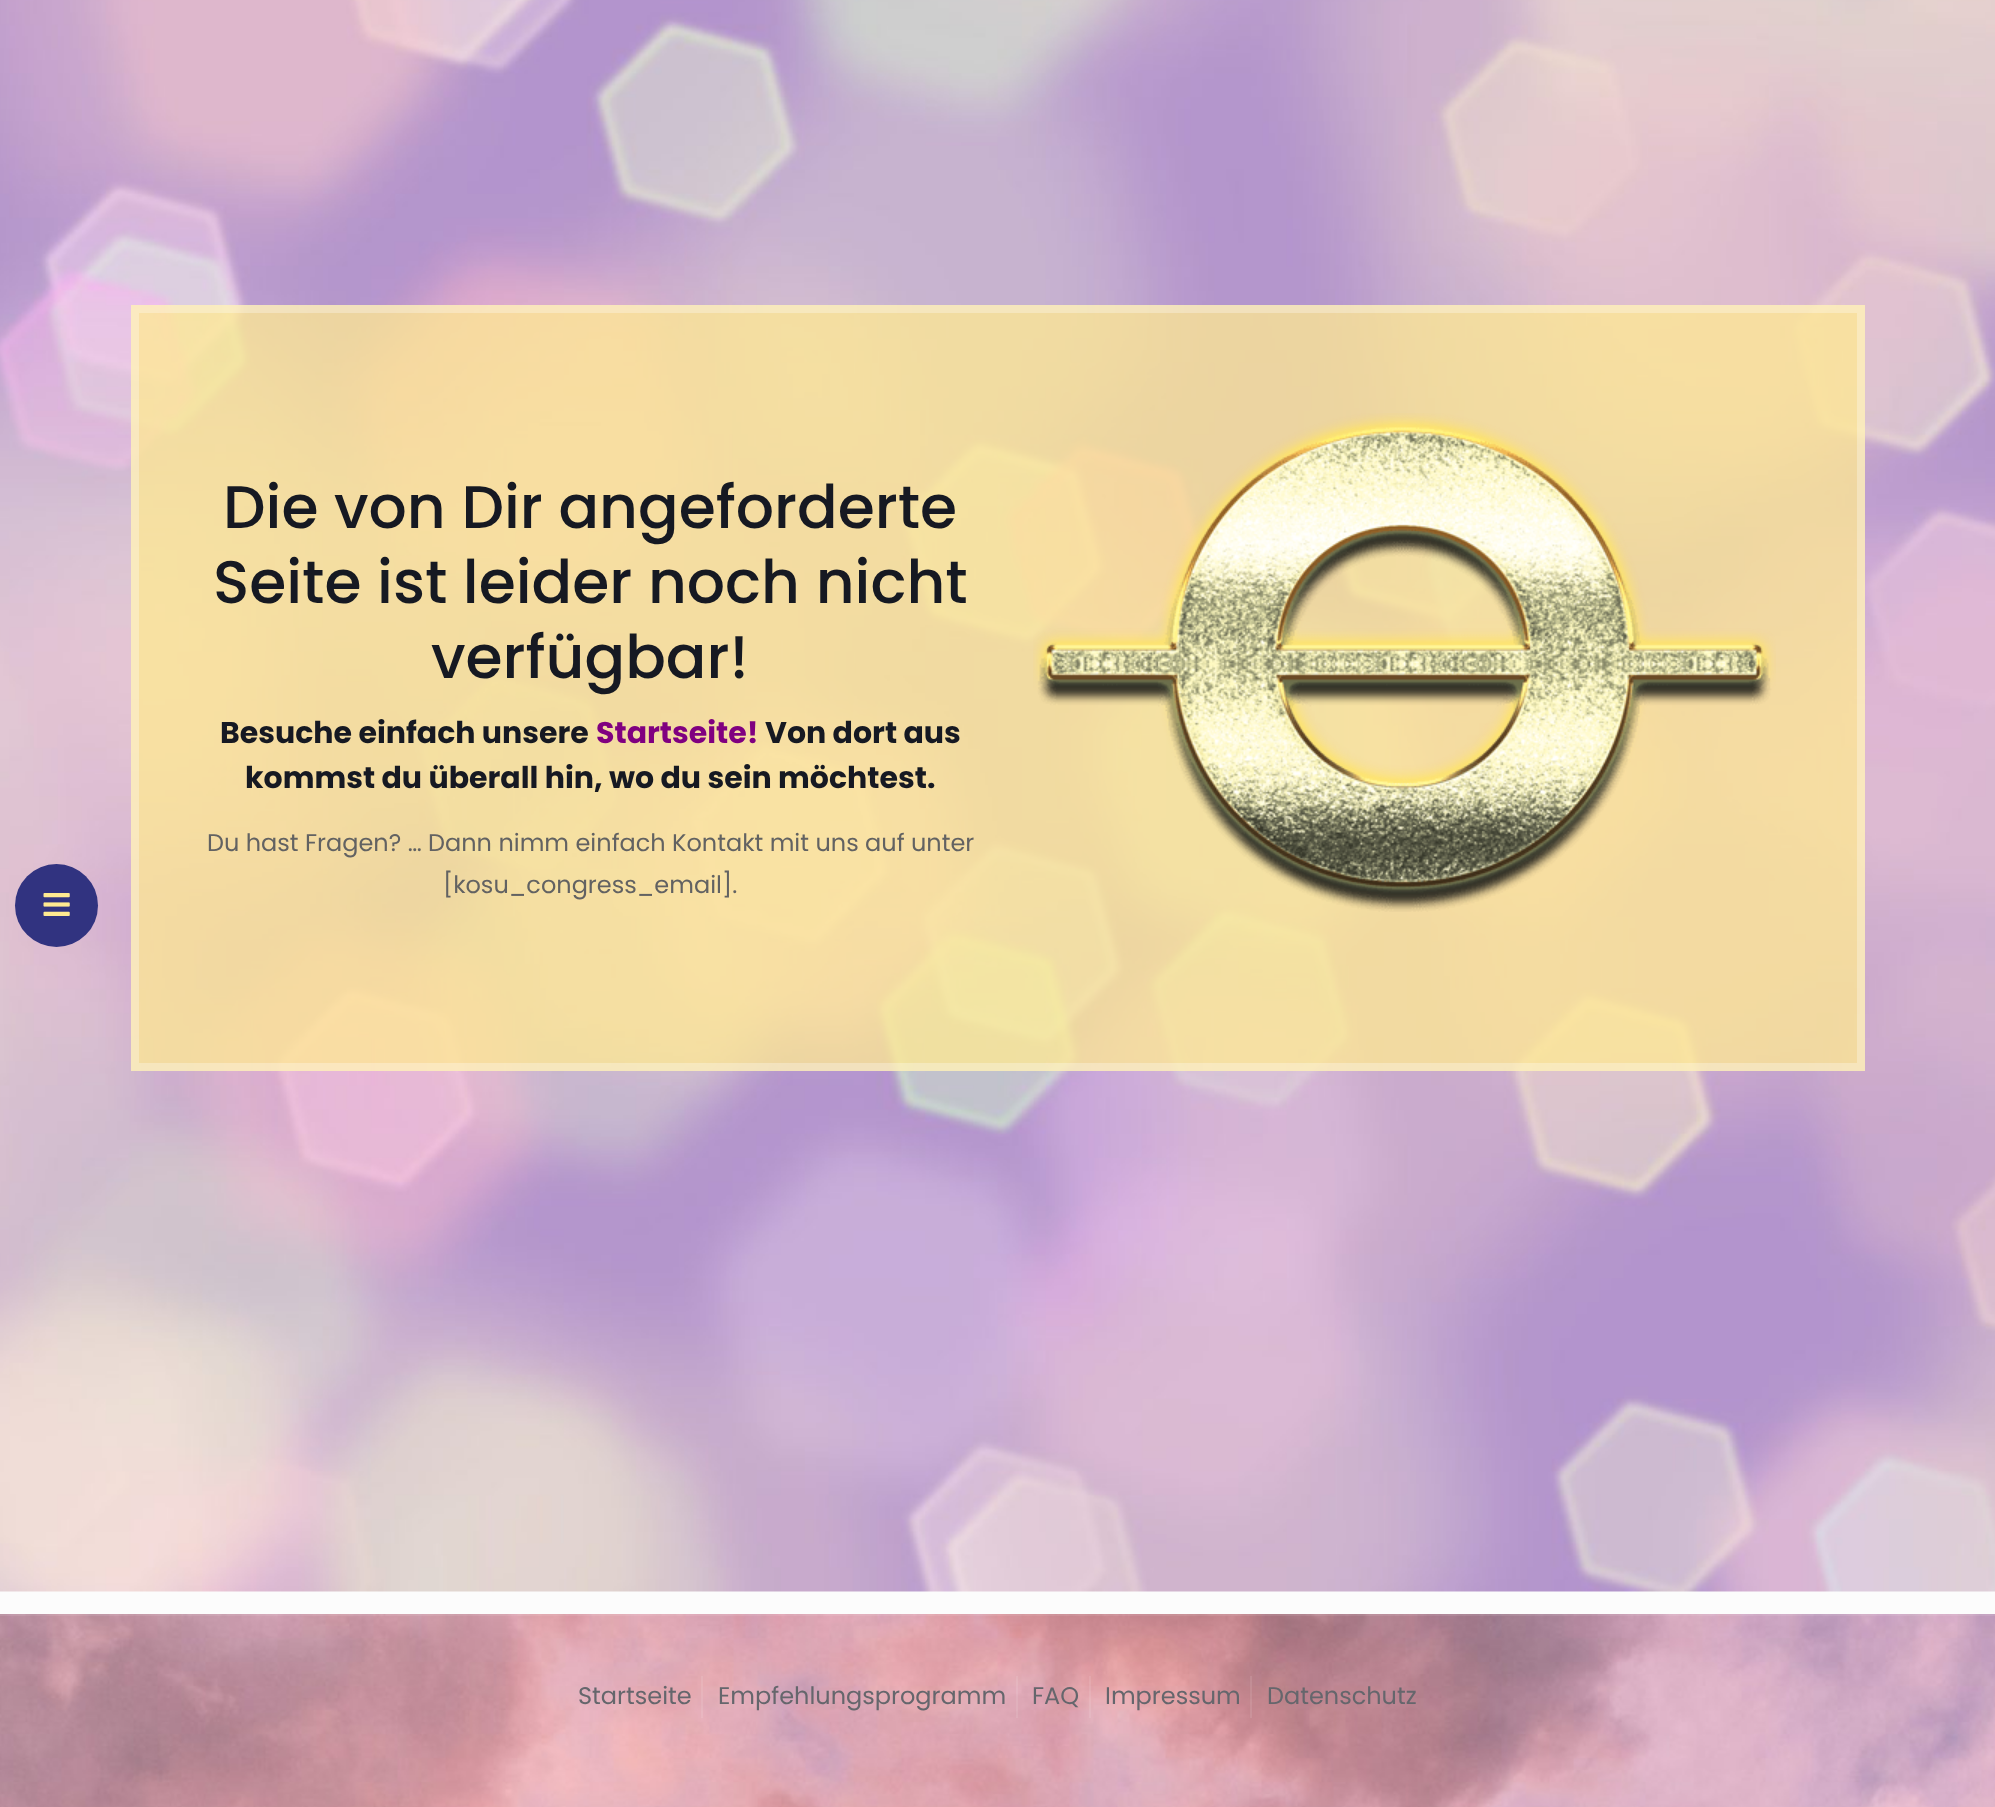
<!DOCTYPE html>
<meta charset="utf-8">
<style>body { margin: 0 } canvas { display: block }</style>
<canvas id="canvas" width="1995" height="1807"></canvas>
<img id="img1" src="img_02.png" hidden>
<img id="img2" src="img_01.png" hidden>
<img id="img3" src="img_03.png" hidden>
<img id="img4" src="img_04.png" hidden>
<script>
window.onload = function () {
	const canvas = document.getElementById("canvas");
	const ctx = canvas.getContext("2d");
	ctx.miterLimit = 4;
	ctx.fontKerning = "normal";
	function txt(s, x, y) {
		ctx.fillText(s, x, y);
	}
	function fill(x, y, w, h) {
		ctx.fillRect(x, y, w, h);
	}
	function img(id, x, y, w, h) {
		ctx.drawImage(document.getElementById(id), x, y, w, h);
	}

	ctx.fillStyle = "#FCFCFC";
	fill(0, 0, 1995, 1807);
	img("img1", 0, 0, 1995, 1592);
	ctx.fillStyle = "#313380";
	ctx.beginPath();
	ctx.arc(56.5, 905.5, 41.5, 0, Math.PI * 2);
	ctx.fill();
	img("img2", 43, 893, 27, 23);
	ctx.fillStyle = "rgba(255, 234, 145, 0.75)";
	fill(131, 305, 1734, 766);
	ctx.strokeStyle = "rgba(255, 255, 255, 0.3)";
	ctx.lineWidth = 8;
	ctx.strokeRect(135, 309, 1726, 758);
	img("img3", 1033, 413, 743, 499);
	img("img4", 0, 1614, 1995, 193);
	ctx.fillStyle = "rgba(255, 255, 255, 0.1)";
	fill(0, 1614, 1995, 2);
	fill(701, 1676, 2, 42);
	fill(1016, 1676, 2, 42);
	fill(1089, 1676, 2, 42);
	fill(1250, 1676, 2, 42);
	ctx.font = "500 60px Poppins";
	ctx.fillStyle = "#161922";
	txt("Die von Dir angeforderte", 223, 528);
	txt("Seite ist leider noch nicht", 213, 603);
	txt("verfügbar!", 431, 678);
	ctx.font = "bold 30px Poppins";
	txt("Besuche einfach unsere", 220, 743);
	ctx.fillStyle = "#800080";
	txt("Startseite!", 596, 743);
	ctx.fillStyle = "#161922";
	txt("Von dort aus", 765, 743);
	txt("kommst du überall hin, wo du sein möchtest.", 245, 788);
	ctx.font = "24px Poppins";
	ctx.fillStyle = "#626262";
	txt("Du hast Fragen? … Dann nimm einfach Kontakt mit uns auf unter", 207, 851);
	txt("[kosu_congress_email].", 443, 893);
	ctx.fillStyle = "#65666C";
	txt("Startseite", 578, 1704);
	txt("Empfehlungsprogramm", 718, 1704);
	txt("FAQ", 1032, 1704);
	txt("Impressum", 1105, 1704);
	txt("Datenschutz", 1267, 1704);
};
</script>
